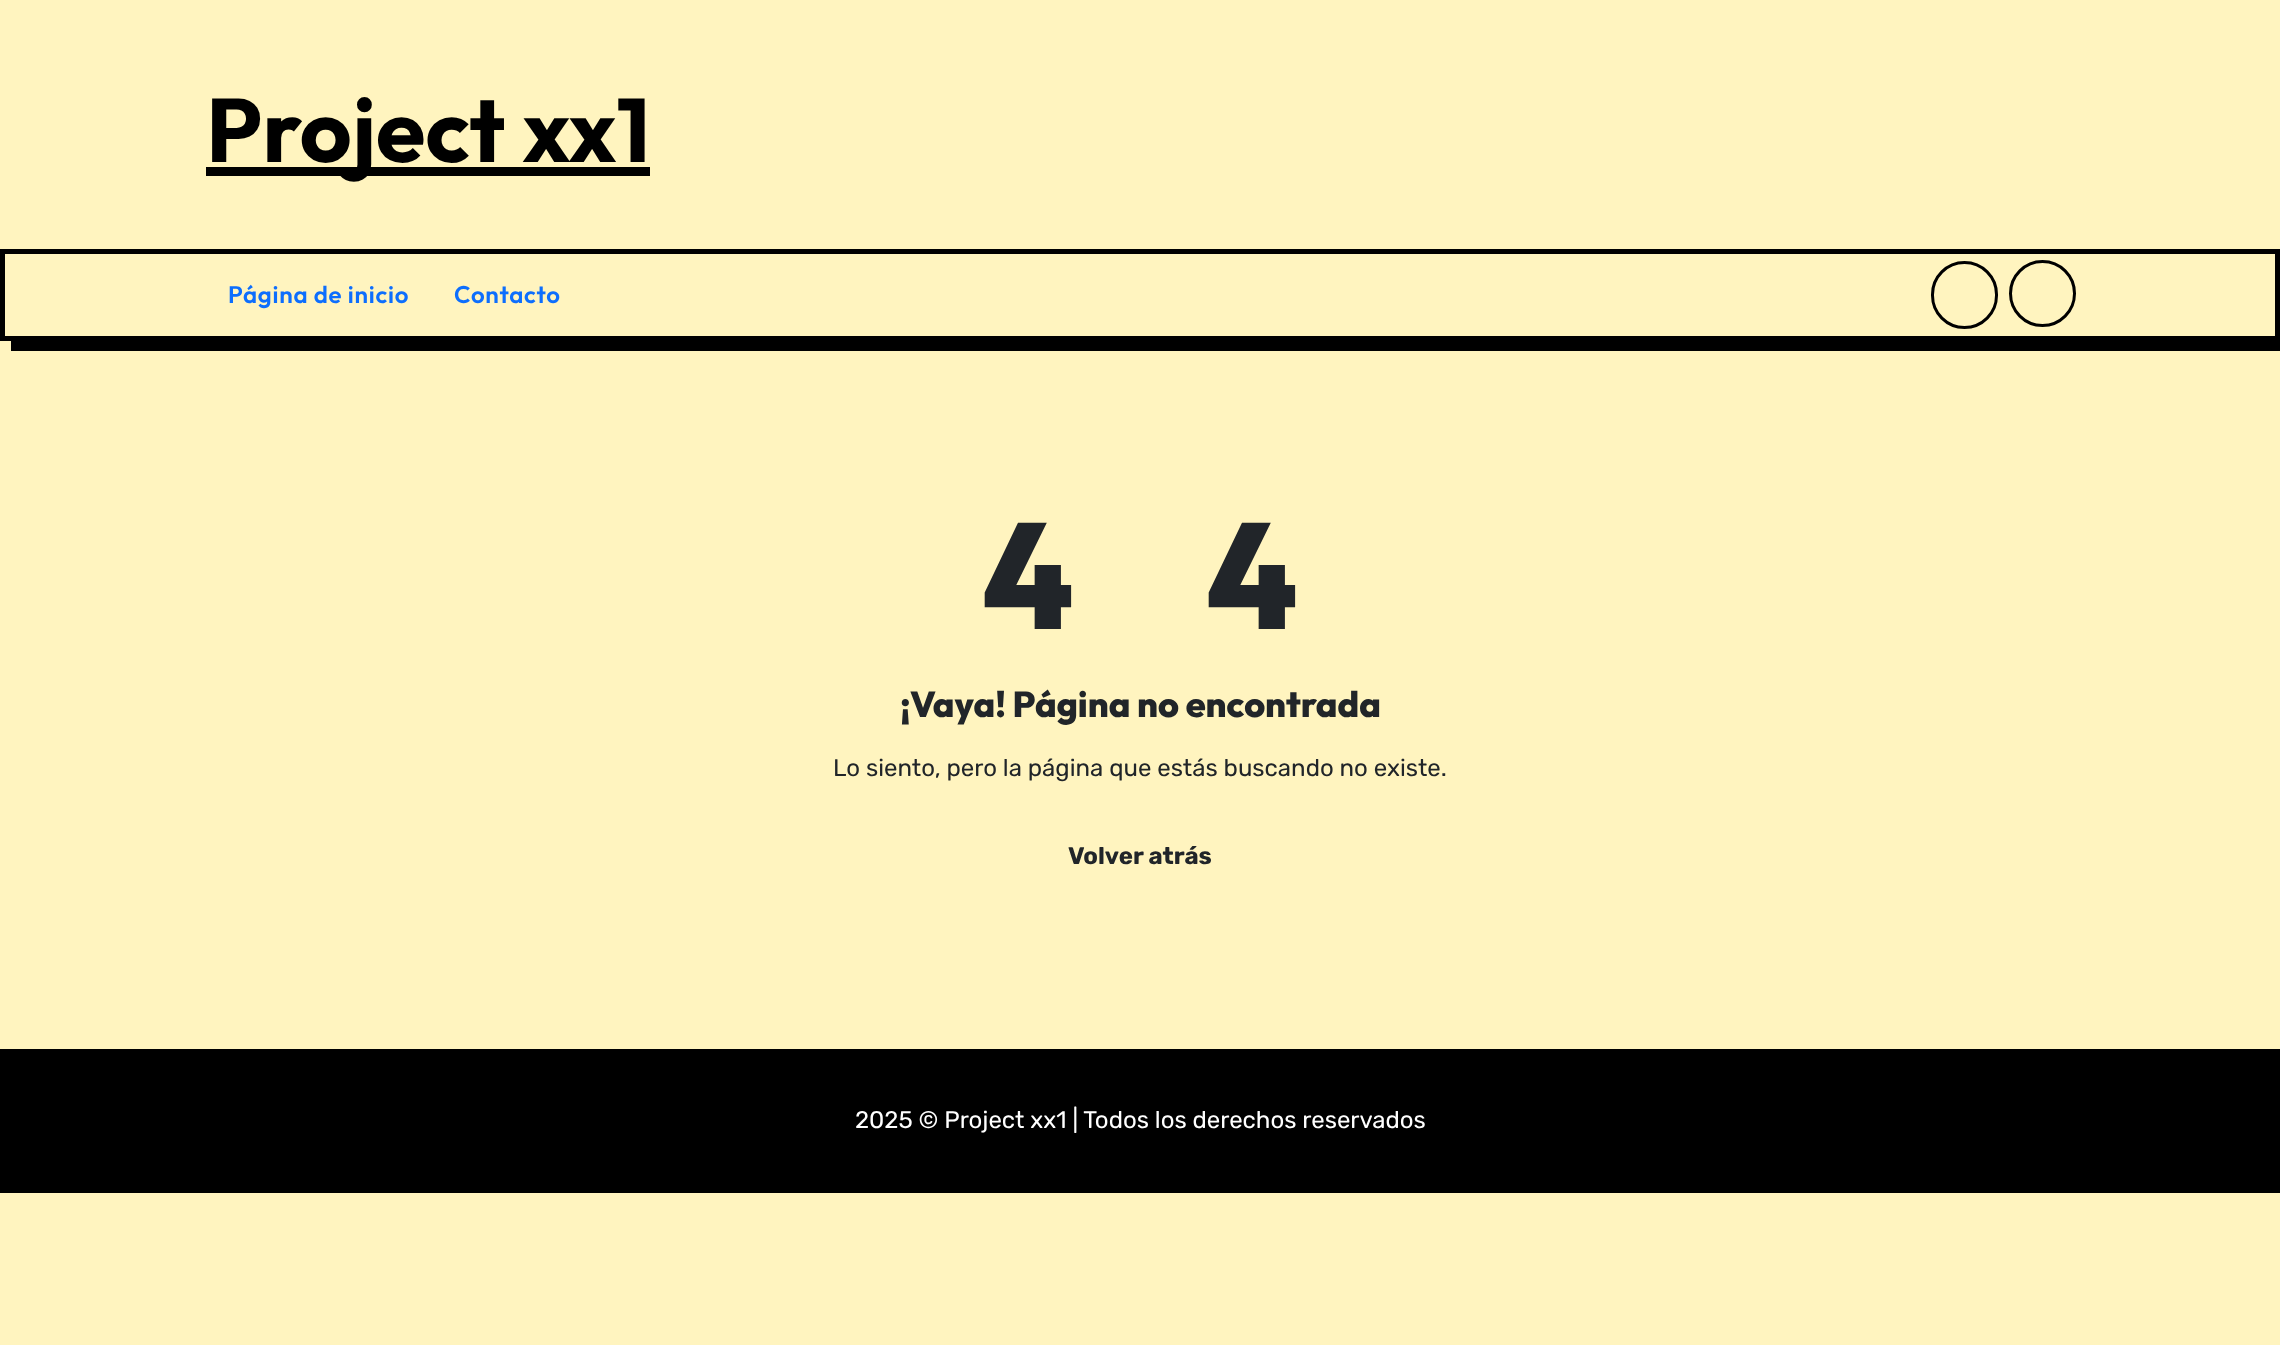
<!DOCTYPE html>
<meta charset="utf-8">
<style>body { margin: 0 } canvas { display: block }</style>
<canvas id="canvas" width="2280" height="1345"></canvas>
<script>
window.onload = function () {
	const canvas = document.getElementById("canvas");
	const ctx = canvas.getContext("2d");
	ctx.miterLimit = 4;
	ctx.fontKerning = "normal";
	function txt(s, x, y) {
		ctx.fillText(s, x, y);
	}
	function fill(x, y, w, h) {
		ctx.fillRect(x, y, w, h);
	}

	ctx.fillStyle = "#FFF4BF";
	fill(0, 0, 2280, 1345);
	ctx.fillStyle = "#000000";
	fill(206, 167, 444, 9);
	ctx.beginPath();
	ctx.moveTo(11, 340);
	ctx.lineTo(11, 351);
	ctx.lineTo(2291, 351);
	ctx.lineTo(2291, 260);
	ctx.lineTo(2280, 260);
	ctx.lineTo(2280, 340);
	ctx.closePath();
	ctx.fill();
	ctx.strokeStyle = "#000000";
	ctx.lineWidth = 5;
	ctx.strokeRect(2.5, 251.5, 2275, 87);
	ctx.beginPath();
	ctx.roundRect(1932.5, 262.5, 64, 65, 32);
	ctx.lineWidth = 3;
	ctx.stroke();
	ctx.beginPath();
	ctx.arc(2042.5, 293.5, 32, 0, Math.PI * 2);
	ctx.stroke();
	fill(0, 1049, 2280, 144);
	ctx.font = "bold 90px Outfit";
	txt("Project xx1", 206, 162);
	ctx.letterSpacing = "0.75px";
	ctx.font = "600 24px Outfit";
	ctx.fillStyle = "#0D6EFD";
	txt("Página de inicio", 228, 303);
	txt("Contacto", 454, 303);
	ctx.letterSpacing = "0px";
	ctx.font = "800 150px Outfit";
	ctx.fillStyle = "#212529";
	txt("4", 982, 629);
	txt("4", 1206, 629);
	ctx.font = "800 36px Outfit";
	txt("¡Vaya! Página no encontrada", 900, 717);
	ctx.font = "300 24px Rubik";
	txt("Lo siento, pero la página que estás buscando no existe.", 833, 776);
	ctx.font = "bold 24px Rubik";
	txt("Volver atrás", 1068, 864);
	ctx.font = "300 24px Rubik";
	ctx.fillStyle = "#FFFFFF";
	txt("2025 © Project xx1 | Todos los derechos reservados", 855, 1128);
};
</script>
